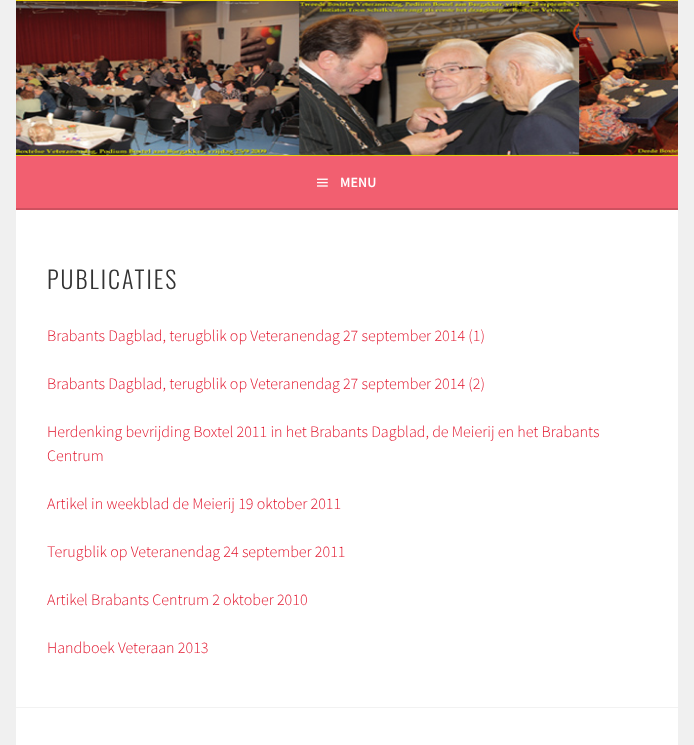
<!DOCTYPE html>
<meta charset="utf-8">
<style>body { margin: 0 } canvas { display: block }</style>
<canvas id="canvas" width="694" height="745"></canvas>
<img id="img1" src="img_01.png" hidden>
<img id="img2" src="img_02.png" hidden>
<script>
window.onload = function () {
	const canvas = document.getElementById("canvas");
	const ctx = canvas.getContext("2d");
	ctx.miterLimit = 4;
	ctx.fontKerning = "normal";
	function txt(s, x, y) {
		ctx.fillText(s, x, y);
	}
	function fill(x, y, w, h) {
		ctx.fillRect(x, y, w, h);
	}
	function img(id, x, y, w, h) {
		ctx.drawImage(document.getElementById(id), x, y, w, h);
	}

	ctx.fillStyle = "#F0F0F0";
	fill(0, 0, 694, 745);
	img("img1", 16, 0, 662, 156);
	ctx.fillStyle = "#F25F70";
	fill(16, 156, 662, 52);
	ctx.fillStyle = "#CE515F";
	fill(16, 208, 662, 2);
	img("img2", 317, 178, 11, 9);
	ctx.fillStyle = "#FFFFFF";
	fill(16, 210, 662, 535);
	ctx.fillStyle = "#F2F2F2";
	fill(16, 707, 662, 1);
	ctx.font = "600 14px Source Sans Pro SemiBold";
	ctx.fillStyle = "#FFFFFF";
	txt("MENU", 340, 187);
	ctx.letterSpacing = "2px";
	ctx.font = "300 24px Oswald";
	ctx.fillStyle = "#333333";
	txt("PUBLICATIES", 47, 289);
	ctx.letterSpacing = "0px";
	ctx.font = "300 16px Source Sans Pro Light";
	ctx.fillStyle = "#E1122A";
	txt("Brabants Dagblad, terugblik op Veteranendag 27 september 2014 (1)", 47, 341);
	txt("Brabants Dagblad, terugblik op Veteranendag 27 september 2014 (2)", 47, 389);
	txt("Herdenking bevrijding Boxtel 2011 in het Brabants Dagblad, de Meierij en het Brabants", 47, 437);
	txt("Centrum", 47, 461);
	txt("Artikel in weekblad de Meierij 19 oktober 2011", 47, 509);
	txt("Terugblik op Veteranendag 24 september 2011", 47, 557);
	txt("Artikel Brabants Centrum 2 oktober 2010", 47, 605);
	txt("Handboek Veteraan 2013", 47, 653);
};
</script>
